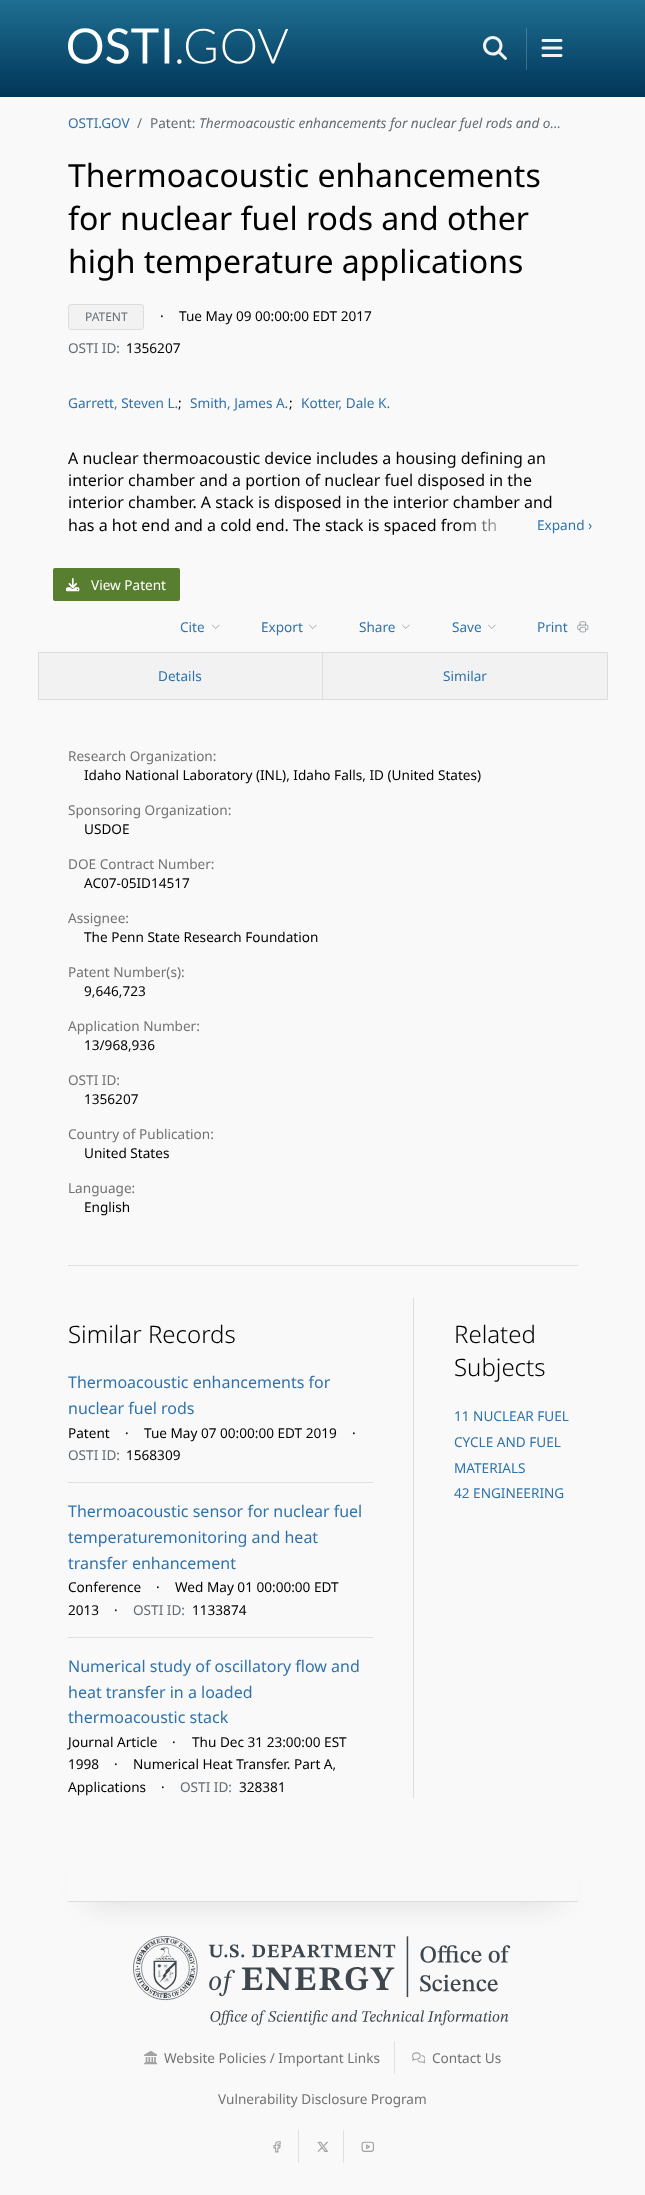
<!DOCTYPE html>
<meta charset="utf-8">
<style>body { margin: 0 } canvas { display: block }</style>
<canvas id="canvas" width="645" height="2195"></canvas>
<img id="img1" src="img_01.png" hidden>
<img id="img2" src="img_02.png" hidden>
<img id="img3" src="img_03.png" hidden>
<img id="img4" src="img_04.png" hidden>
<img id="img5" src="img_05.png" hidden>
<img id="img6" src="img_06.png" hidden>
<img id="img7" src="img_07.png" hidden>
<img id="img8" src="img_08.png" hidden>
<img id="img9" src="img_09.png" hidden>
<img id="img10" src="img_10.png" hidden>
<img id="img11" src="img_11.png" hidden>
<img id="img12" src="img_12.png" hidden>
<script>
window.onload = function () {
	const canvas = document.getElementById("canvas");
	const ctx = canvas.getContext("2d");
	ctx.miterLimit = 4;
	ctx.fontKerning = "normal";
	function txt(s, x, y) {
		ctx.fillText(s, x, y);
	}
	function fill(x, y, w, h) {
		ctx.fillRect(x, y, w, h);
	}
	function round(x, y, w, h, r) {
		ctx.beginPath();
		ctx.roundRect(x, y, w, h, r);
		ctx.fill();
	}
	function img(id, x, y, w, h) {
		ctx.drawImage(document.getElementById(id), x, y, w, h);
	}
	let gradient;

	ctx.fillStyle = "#F9F9F9";
	fill(0, 0, 645, 2195);
	gradient = ctx.createLinearGradient(323, 0, 323, 97);
	gradient.addColorStop(0, "#1E6F92");
	gradient.addColorStop(1, "#013558");
	ctx.fillStyle = gradient;
	fill(0, 0, 645, 97);
	gradient = ctx.createLinearGradient(323, 0, 323, 97);
	gradient.addColorStop(0, "#4B8CA8");
	gradient.addColorStop(1, "#345D79");
	ctx.fillStyle = gradient;
	fill(526, 28, 1, 42);
	img("img1", 68, 28, 220, 36);
	img("img2", 483, 36, 24, 24);
	img("img3", 541, 39, 22, 18);
	ctx.fillStyle = "#F2F2F2";
	ctx.beginPath();
	ctx.roundRect(68.5, 304.5, 75, 25, 2.5);
	ctx.fill();
	ctx.strokeStyle = "#DDDDDD";
	ctx.stroke();
	ctx.fillStyle = "#587F2F";
	round(53, 568, 127, 33, 2);
	img("img4", 66, 578, 14, 14);
	img("img5", 212, 624, 8, 5);
	img("img5", 309, 624, 8, 5);
	img("img5", 402, 624, 8, 5);
	img("img5", 488, 624, 8, 5);
	img("img6", 577, 621, 12, 12);
	ctx.strokeRect(38.5, 652.5, 569, 47);
	ctx.fillStyle = "#F2F2F2";
	fill(39, 653, 283, 46);
	ctx.fillStyle = "#DDDDDD";
	fill(322, 653, 1, 46);
	ctx.fillStyle = "#F2F2F2";
	fill(323, 653, 284, 46);
	ctx.fillStyle = "#E0E0E0";
	fill(68, 1265, 510, 1);
	fill(68, 1482, 305, 1);
	fill(68, 1637, 305, 1);
	ctx.fillStyle = "#DDDDDD";
	fill(413, 1298, 1, 500);
	img("img7", 133, 1936, 378, 90);
	ctx.save();
	ctx.beginPath();
	ctx.moveTo(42, 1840);
	ctx.lineTo(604, 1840);
	ctx.lineTo(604, 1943);
	ctx.lineTo(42, 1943);
	ctx.closePath();
	ctx.moveTo(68, 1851);
	ctx.lineTo(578, 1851);
	ctx.lineTo(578, 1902);
	ctx.lineTo(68, 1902);
	ctx.closePath();
	ctx.clip("evenodd");
	ctx.fillStyle = "#BBBBBB";
	ctx.filter = "blur(15px)";
	ctx.beginPath();
	ctx.rect(88, 1886, 470, 11);
	ctx.fill();
	ctx.filter = "none";
	ctx.restore();
	fill(68, 1901, 510, 1);
	ctx.fillStyle = "#E0E0E0";
	fill(394, 2041, 1, 33);
	img("img8", 144, 2051, 13, 14);
	img("img9", 412, 2052, 13, 12);
	fill(298, 2130, 1, 33);
	img("img10", 273, 2141, 8, 12);
	fill(343, 2130, 1, 33);
	img("img11", 317, 2141, 11, 11);
	img("img12", 361, 2141, 13, 11);
	ctx.font = "13.6px Noto Sans";
	ctx.fillStyle = "#3073AC";
	txt("OSTI.GOV", 68, 128);
	ctx.fillStyle = "#636C72";
	txt("/", 137, 128);
	txt("Patent:", 150, 128);
	ctx.font = "italic 13.6px Noto Sans";
	txt("Thermoacoustic enhancements for nuclear fuel rods and o…", 199, 128);
	ctx.font = "32px Noto Sans";
	ctx.fillStyle = "#000000";
	txt("Thermoacoustic enhancements", 68, 187);
	txt("for nuclear fuel rods and other", 68, 230);
	txt("high temperature applications", 68, 273);
	ctx.font = "12px Noto Sans";
	ctx.fillStyle = "#636C72";
	txt("PATENT", 85, 321);
	ctx.font = "13.6px Noto Sans";
	ctx.fillStyle = "#000000";
	txt("·", 160, 321);
	txt("Tue May 09 00:00:00 EDT 2017", 179, 321);
	ctx.fillStyle = "#636C72";
	txt("OSTI ID:", 68, 353);
	ctx.fillStyle = "#000000";
	txt("1356207", 126, 353);
	ctx.fillStyle = "#3073AC";
	txt("Garrett, Steven L.", 68, 408);
	ctx.fillStyle = "#000000";
	txt(";", 178, 408);
	ctx.fillStyle = "#3073AC";
	txt("Smith, James A.", 190, 408);
	ctx.fillStyle = "#000000";
	txt(";", 289, 408);
	ctx.fillStyle = "#3073AC";
	txt("Kotter, Dale K.", 301, 408);
	ctx.font = "16px Noto Sans";
	ctx.fillStyle = "#000000";
	txt("A nuclear thermoacoustic device includes a housing defining an", 68, 464);
	txt("interior chamber and a portion of nuclear fuel disposed in the", 68, 486);
	txt("interior chamber. A stack is disposed in the interior chamber and", 68, 508);
	txt("has a hot end and a cold end. The stack is spaced from th", 68, 531);
	gradient = ctx.createLinearGradient(456, 525, 593, 525);
	gradient.addColorStop(0, "rgba(249, 249, 249, 0)");
	gradient.addColorStop(0.45, "#F9F9F9");
	gradient.addColorStop(1, "#F9F9F9");
	ctx.fillStyle = gradient;
	fill(457, 518, 39, 14);
	ctx.font = "13.6px Noto Sans";
	ctx.fillStyle = "#3073AC";
	txt("Expand ›", 537, 530);
	ctx.fillStyle = "#FFFFFF";
	txt("View Patent", 91, 590);
	ctx.fillStyle = "#3073AC";
	txt("Cite", 180, 632);
	txt("Export", 261, 632);
	txt("Share", 359, 632);
	txt("Save", 452, 632);
	txt("Print", 537, 632);
	txt("Details", 158, 681);
	txt("Similar", 443, 681);
	ctx.fillStyle = "#737373";
	txt("Research Organization:", 68, 761);
	ctx.fillStyle = "#000000";
	txt("Idaho National Laboratory (INL), Idaho Falls, ID (United States)", 84, 780);
	ctx.fillStyle = "#737373";
	txt("Sponsoring Organization:", 68, 815);
	ctx.fillStyle = "#000000";
	txt("USDOE", 84, 834);
	ctx.fillStyle = "#737373";
	txt("DOE Contract Number:", 68, 869);
	ctx.fillStyle = "#000000";
	txt("AC07-05ID14517", 84, 888);
	ctx.fillStyle = "#737373";
	txt("Assignee:", 68, 923);
	ctx.fillStyle = "#000000";
	txt("The Penn State Research Foundation", 84, 942);
	ctx.fillStyle = "#737373";
	txt("Patent Number(s):", 68, 977);
	ctx.fillStyle = "#000000";
	txt("9,646,723", 84, 996);
	ctx.fillStyle = "#737373";
	txt("Application Number:", 68, 1031);
	ctx.fillStyle = "#000000";
	txt("13/968,936", 84, 1050);
	ctx.fillStyle = "#737373";
	txt("OSTI ID:", 68, 1085);
	ctx.fillStyle = "#000000";
	txt("1356207", 84, 1104);
	ctx.fillStyle = "#737373";
	txt("Country of Publication:", 68, 1139);
	ctx.fillStyle = "#000000";
	txt("United States", 84, 1158);
	ctx.fillStyle = "#737373";
	txt("Language:", 68, 1193);
	ctx.fillStyle = "#000000";
	txt("English", 84, 1212);
	ctx.font = "300 24px Noto Sans";
	txt("Similar Records", 68, 1343);
	ctx.font = "16px Noto Sans";
	ctx.fillStyle = "#3073AC";
	txt("Thermoacoustic enhancements for", 68, 1388);
	txt("nuclear fuel rods", 68, 1414);
	ctx.font = "13.6px Noto Sans";
	ctx.fillStyle = "#000000";
	txt("Patent", 68, 1438);
	txt("·", 125, 1438);
	txt("Tue May 07 00:00:00 EDT 2019", 144, 1438);
	txt("·", 352, 1438);
	ctx.fillStyle = "#636C72";
	txt("OSTI ID:", 68, 1460);
	ctx.fillStyle = "#000000";
	txt("1568309", 126, 1460);
	ctx.font = "16px Noto Sans";
	ctx.fillStyle = "#3073AC";
	txt("Thermoacoustic sensor for nuclear fuel", 68, 1517);
	txt("temperaturemonitoring and heat", 68, 1543);
	txt("transfer enhancement", 68, 1569);
	ctx.font = "13.6px Noto Sans";
	ctx.fillStyle = "#000000";
	txt("Conference", 68, 1592);
	txt("·", 156, 1592);
	txt("Wed May 01 00:00:00 EDT", 175, 1592);
	txt("2013", 68, 1615);
	txt("·", 114, 1615);
	ctx.fillStyle = "#636C72";
	txt("OSTI ID:", 133, 1615);
	ctx.fillStyle = "#000000";
	txt("1133874", 192, 1615);
	ctx.font = "16px Noto Sans";
	ctx.fillStyle = "#3073AC";
	txt("Numerical study of oscillatory flow and", 68, 1672);
	txt("heat transfer in a loaded", 68, 1698);
	txt("thermoacoustic stack", 68, 1723);
	ctx.font = "13.6px Noto Sans";
	ctx.fillStyle = "#000000";
	txt("Journal Article", 68, 1747);
	txt("·", 172, 1747);
	txt("Thu Dec 31 23:00:00 EST", 192, 1747);
	txt("1998", 68, 1769);
	txt("·", 114, 1769);
	txt("Numerical Heat Transfer. Part A,", 133, 1769);
	txt("Applications", 68, 1792);
	txt("·", 161, 1792);
	ctx.fillStyle = "#636C72";
	txt("OSTI ID:", 180, 1792);
	ctx.fillStyle = "#000000";
	txt("328381", 239, 1792);
	ctx.font = "300 24px Noto Sans";
	txt("Related", 454, 1343);
	txt("Subjects", 454, 1376);
	ctx.font = "13.6px Noto Sans";
	ctx.fillStyle = "#3073AC";
	txt("11 NUCLEAR FUEL", 454, 1421);
	txt("CYCLE AND FUEL", 454, 1447);
	txt("MATERIALS", 454, 1473);
	txt("42 ENGINEERING", 454, 1498);
	ctx.fillStyle = "#737373";
	txt("Website Policies / Important Links", 164, 2063);
	txt("Contact Us", 432, 2063);
	txt("Vulnerability Disclosure Program", 218, 2104);
};
</script>
